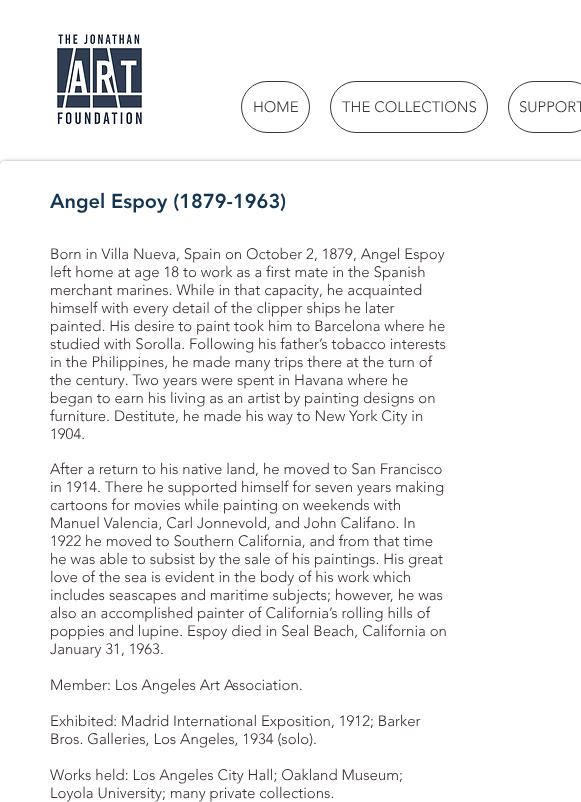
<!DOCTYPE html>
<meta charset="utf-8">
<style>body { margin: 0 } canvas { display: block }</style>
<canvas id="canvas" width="581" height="802"></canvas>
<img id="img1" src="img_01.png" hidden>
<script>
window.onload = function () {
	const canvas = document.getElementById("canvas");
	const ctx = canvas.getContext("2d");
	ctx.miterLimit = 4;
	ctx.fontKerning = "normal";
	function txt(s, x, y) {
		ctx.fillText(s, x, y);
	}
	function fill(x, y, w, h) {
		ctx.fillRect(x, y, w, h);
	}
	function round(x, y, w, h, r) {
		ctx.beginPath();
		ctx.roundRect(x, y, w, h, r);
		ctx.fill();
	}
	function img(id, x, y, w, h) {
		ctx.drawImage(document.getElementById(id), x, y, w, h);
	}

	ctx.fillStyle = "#FFFFFF";
	fill(0, 0, 581, 802);
	img("img1", 57, 34, 85, 90);
	ctx.beginPath();
	ctx.roundRect(241.5, 81.5, 68, 51, 25.5);
	ctx.strokeStyle = "#383838";
	ctx.stroke();
	ctx.beginPath();
	ctx.roundRect(330.5, 81.5, 157, 51, 25.5);
	ctx.stroke();
	ctx.beginPath();
	ctx.roundRect(508.5, 81.5, 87, 51, 25.5);
	ctx.stroke();
	ctx.save();
	ctx.beginPath();
	ctx.moveTo(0, 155);
	ctx.lineTo(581, 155);
	ctx.lineTo(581, 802);
	ctx.lineTo(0, 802);
	ctx.closePath();
	ctx.moveTo(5, 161);
	ctx.lineTo(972, 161);
	ctx.bezierCurveTo(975, 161, 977, 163, 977, 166);
	ctx.lineTo(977, 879);
	ctx.bezierCurveTo(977, 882, 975, 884, 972, 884);
	ctx.lineTo(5, 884);
	ctx.bezierCurveTo(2, 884, 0, 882, 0, 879);
	ctx.lineTo(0, 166);
	ctx.bezierCurveTo(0, 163, 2, 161, 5, 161);
	ctx.closePath();
	ctx.clip("evenodd");
	ctx.fillStyle = "rgba(0, 0, 0, 0.6)";
	ctx.filter = "blur(2px)";
	ctx.beginPath();
	ctx.roundRect(0, 162, 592, 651, 5);
	ctx.fill();
	ctx.filter = "none";
	ctx.restore();
	ctx.fillStyle = "rgba(255, 255, 255, 0.73)";
	round(0, 161, 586, 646, 5);
	ctx.font = "300 15px 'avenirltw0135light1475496'";
	ctx.fillStyle = "#383838";
	txt("HOME", 253, 112);
	txt("THE COLLECTIONS", 342, 112);
	txt("SUPPORT", 519, 112);
	ctx.font = "900 20px 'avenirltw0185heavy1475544'";
	ctx.fillStyle = "#133552";
	txt("Angel Espoy (1879-1963)", 50, 208);
	ctx.font = "300 15px 'avenirltw0135light1475496'";
	ctx.fillStyle = "#382E2E";
	txt("Born in Villa Nueva, Spain on October 2, 1879, Angel Espoy", 50, 259);
	txt("left home at age 18 to work as a first mate in the Spanish", 50, 277);
	txt("merchant marines. While in that capacity, he acquainted", 50, 295);
	txt("himself with every detail of the clipper ships he later", 50, 313);
	txt("painted. His desire to paint took him to Barcelona where he", 50, 331);
	txt("studied with Sorolla. Following his father’s tobacco interests", 50, 349);
	txt("in the Philippines, he made many trips there at the turn of", 50, 367);
	txt("the century. Two years were spent in Havana where he", 50, 385);
	txt("began to earn his living as an artist by painting designs on", 50, 403);
	txt("furniture. Destitute, he made his way to New York City in", 50, 421);
	txt("1904.", 50, 439);
	txt("After a return to his native land, he moved to San Francisco", 50, 474);
	txt("in 1914. There he supported himself for seven years making", 50, 492);
	txt("cartoons for movies while painting on weekends with", 50, 510);
	txt("Manuel Valencia, Carl Jonnevold, and John Califano. In", 50, 528);
	txt("1922 he moved to Southern California, and from that time", 50, 546);
	txt("he was able to subsist by the sale of his paintings. His great", 50, 564);
	txt("love of the sea is evident in the body of his work which", 50, 582);
	txt("includes seascapes and maritime subjects; however, he was", 50, 600);
	txt("also an accomplished painter of California’s rolling hills of", 50, 618);
	txt("poppies and lupine. Espoy died in Seal Beach, California on", 50, 636);
	txt("January 31, 1963.", 50, 654);
	txt("Member: Los Angeles Art Association.", 50, 690);
	txt("Exhibited: Madrid International Exposition, 1912; Barker", 50, 726);
	txt("Bros. Galleries, Los Angeles, 1934 (solo).", 50, 744);
	txt("Works held: Los Angeles City Hall; Oakland Museum;", 50, 780);
	txt("Loyola University; many private collections.", 50, 798);
};
</script>
